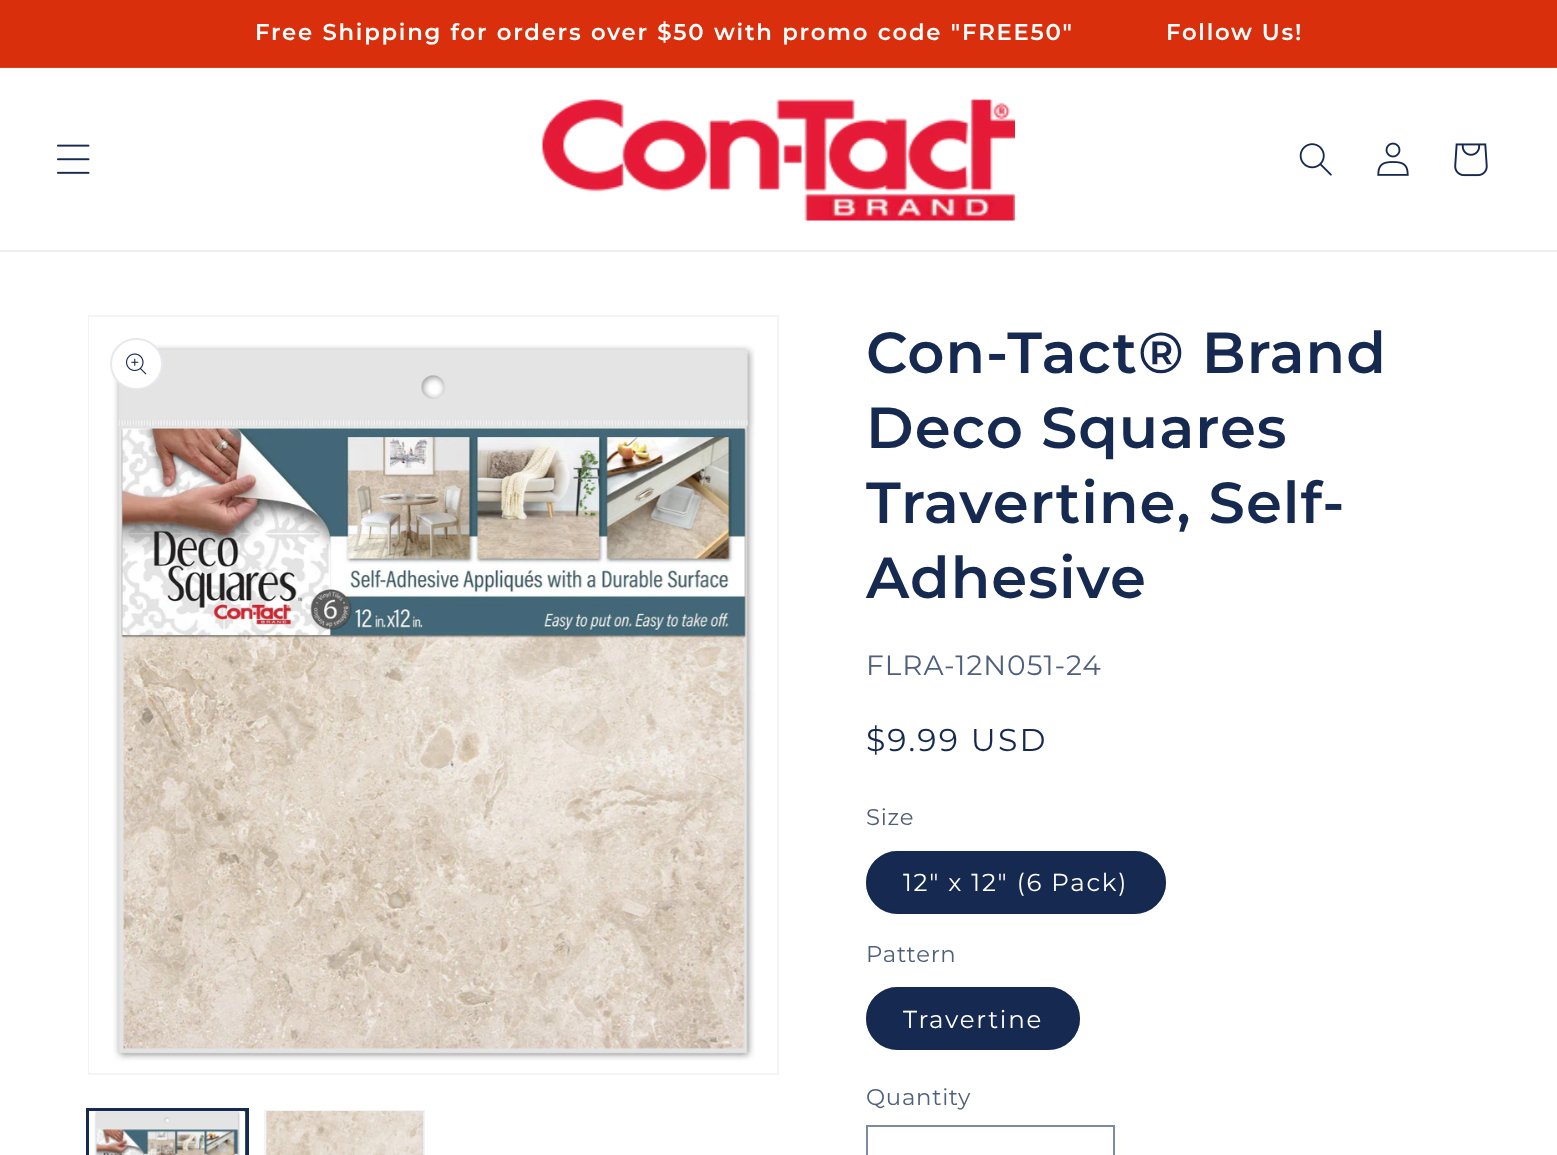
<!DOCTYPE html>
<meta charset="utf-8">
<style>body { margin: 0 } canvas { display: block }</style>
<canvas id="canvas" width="1557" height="1155"></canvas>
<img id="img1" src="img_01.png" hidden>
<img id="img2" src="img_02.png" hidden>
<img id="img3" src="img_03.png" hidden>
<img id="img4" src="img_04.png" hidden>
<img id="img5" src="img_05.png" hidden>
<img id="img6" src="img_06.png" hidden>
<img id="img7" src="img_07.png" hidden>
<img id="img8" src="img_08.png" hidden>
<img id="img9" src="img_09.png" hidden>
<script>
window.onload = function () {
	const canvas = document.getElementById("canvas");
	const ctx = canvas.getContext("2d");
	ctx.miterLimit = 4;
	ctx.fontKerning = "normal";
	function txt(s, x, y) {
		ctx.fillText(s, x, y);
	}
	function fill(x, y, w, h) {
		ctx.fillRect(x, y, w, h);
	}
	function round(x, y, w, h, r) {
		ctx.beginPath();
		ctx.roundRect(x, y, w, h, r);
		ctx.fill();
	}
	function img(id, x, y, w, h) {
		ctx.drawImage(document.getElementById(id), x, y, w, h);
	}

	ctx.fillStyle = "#FFFFFF";
	fill(0, 0, 1557, 1155);
	ctx.fillStyle = "#DA2F0C";
	fill(0, 0, 1557, 67);
	ctx.fillStyle = "#DD401F";
	fill(0, 67, 1557, 1);
	ctx.fillStyle = "#ECEEF1";
	fill(0, 250, 1557, 2);
	img("img1", 57, 144, 33, 30);
	img("img2", 542, 99, 473, 122);
	img("img3", 1299, 143, 33, 33);
	img("img4", 1377, 142, 32, 34);
	img("img5", 1454, 143, 34, 34);
	ctx.strokeStyle = "#F3F4F6";
	ctx.lineWidth = 2;
	ctx.strokeRect(89, 316, 689, 758);
	img("img6", 89, 317, 666, 756);
	ctx.fillStyle = "#FFFFFF";
	round(110, 338, 53, 52, 26);
	ctx.beginPath();
	ctx.roundRect(111, 339, 51, 50, 25);
	ctx.strokeStyle = "rgba(22, 41, 80, 0.1)";
	ctx.stroke();
	img("img7", 126, 353, 21, 22);
	ctx.strokeStyle = "#162950";
	ctx.strokeRect(87, 1109, 161, 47);
	ctx.strokeRect(89, 1111, 157, 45);
	img("img8", 89, 1111, 157, 44);
	ctx.strokeStyle = "#F3F4F6";
	ctx.strokeRect(265, 1111, 159, 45);
	img("img9", 266, 1111, 158, 44);
	ctx.fillStyle = "#162950";
	round(866, 851, 300, 63, 31.5);
	ctx.beginPath();
	ctx.roundRect(867, 852, 298, 61, 30.5);
	ctx.strokeStyle = "rgba(22, 41, 80, 0.55)";
	ctx.stroke();
	round(866, 987, 214, 63, 31.5);
	ctx.beginPath();
	ctx.roundRect(867, 988, 212, 61, 30.5);
	ctx.stroke();
	ctx.strokeStyle = "#7F899F";
	ctx.strokeRect(867, 1126, 247, 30);
	ctx.letterSpacing = "1.75px";
	ctx.wordSpacing = "0.5px";
	ctx.font = "600 22.75px Montserrat";
	ctx.fillStyle = "#FFFFFF";
	txt("Free Shipping for orders over $50 with promo code \"FREE50\"", 255, 40);
	ctx.wordSpacing = "0px";
	txt("Follow Us!", 1166, 40);
	ctx.letterSpacing = "1px";
	ctx.font = "600 57.75px Montserrat";
	ctx.fillStyle = "#162950";
	txt("Con-Tact® Brand", 866, 373);
	txt("Deco Squares", 866, 448);
	txt("Travertine, Self-", 866, 523);
	txt("Adhesive", 866, 598);
	ctx.font = "28px Montserrat";
	ctx.fillStyle = "#505F7C";
	txt("FLRA-12N051-24", 866, 675);
	ctx.letterSpacing = "2.25px";
	ctx.font = "31.5px Montserrat";
	ctx.fillStyle = "#162950";
	txt("$9.99 USD", 866, 751);
	ctx.letterSpacing = "0.75px";
	ctx.font = "22.75px Montserrat";
	ctx.fillStyle = "#505F7C";
	txt("Size", 866, 825);
	ctx.letterSpacing = "1.75px";
	ctx.font = "24.5px Montserrat";
	ctx.fillStyle = "#FFFFFF";
	txt("12\" x 12\" (6 Pack)", 903, 891);
	ctx.letterSpacing = "0.75px";
	ctx.font = "22.75px Montserrat";
	ctx.fillStyle = "#505F7C";
	txt("Pattern", 866, 962);
	ctx.letterSpacing = "1.75px";
	ctx.font = "24.5px Montserrat";
	ctx.fillStyle = "#FFFFFF";
	txt("Travertine", 903, 1028);
	ctx.letterSpacing = "0.75px";
	ctx.font = "22.75px Montserrat";
	ctx.fillStyle = "#505F7C";
	txt("Quantity", 866, 1105);
};
</script>
